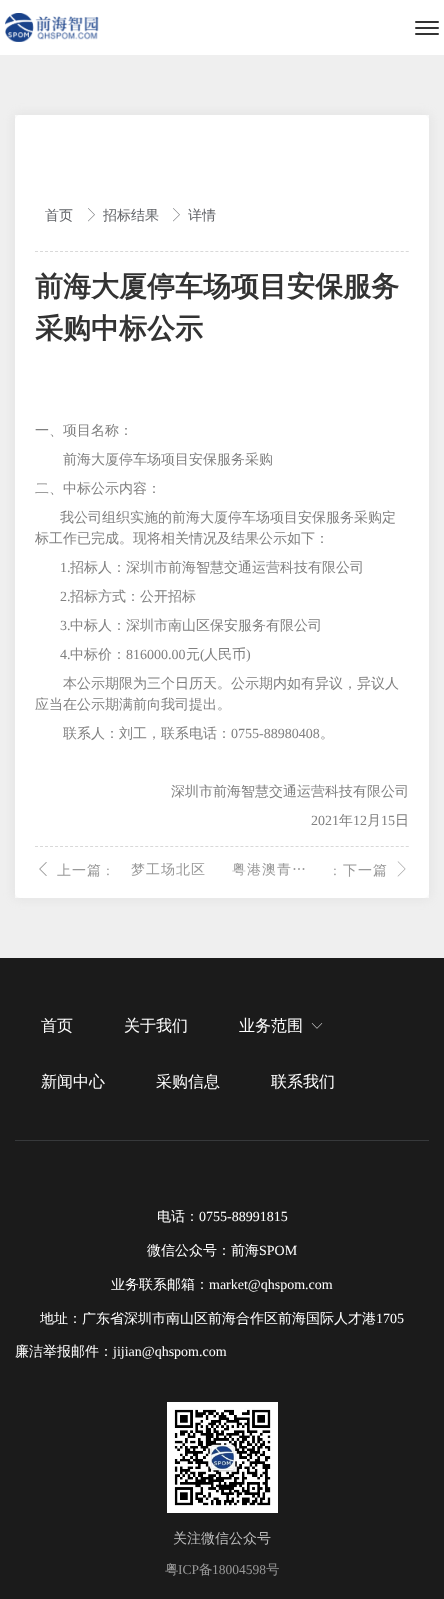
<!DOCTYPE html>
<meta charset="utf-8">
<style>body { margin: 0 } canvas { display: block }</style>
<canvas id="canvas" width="444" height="1599"></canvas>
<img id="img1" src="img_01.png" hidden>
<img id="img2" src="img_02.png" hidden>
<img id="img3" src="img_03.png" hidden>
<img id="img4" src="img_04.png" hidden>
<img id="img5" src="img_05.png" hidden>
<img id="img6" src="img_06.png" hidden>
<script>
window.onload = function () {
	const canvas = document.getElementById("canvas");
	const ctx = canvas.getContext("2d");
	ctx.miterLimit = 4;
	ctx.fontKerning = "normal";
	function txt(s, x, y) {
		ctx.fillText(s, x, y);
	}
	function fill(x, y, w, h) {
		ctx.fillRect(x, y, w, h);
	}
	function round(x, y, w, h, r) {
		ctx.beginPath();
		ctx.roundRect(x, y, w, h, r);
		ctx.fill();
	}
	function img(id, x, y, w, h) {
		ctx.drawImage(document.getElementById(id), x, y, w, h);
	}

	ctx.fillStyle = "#FFFFFF";
	fill(0, 0, 444, 1599);
	img("img1", 5, 13, 94, 29);
	ctx.fillStyle = "#333333";
	round(415, 21, 24, 2, 1);
	round(415, 27, 24, 2, 1);
	round(415, 33, 24, 2, 1);
	ctx.fillStyle = "#EFEFEF";
	fill(0, 55, 444, 903);
	ctx.fillStyle = "#FFFFFF";
	fill(15, 115, 414, 783);
	ctx.fillStyle = "rgba(191, 191, 191, 0.2)";
	ctx.filter = "blur(5px)";
	ctx.beginPath();
	ctx.roundRect(13, 113, 418, 787, 7);
	ctx.fill();
	ctx.filter = "none";
	ctx.fillStyle = "#FFFFFF";
	round(15, 115, 414, 783, 5);
	img("img2", 88, 208, 7, 14);
	img("img2", 173, 208, 7, 14);
	ctx.beginPath();
	ctx.moveTo(35, 251.5);
	ctx.lineTo(409, 251.5);
	ctx.strokeStyle = "#D9D9D9";
	ctx.setLineDash([3, 2.01]);
	ctx.stroke();
	ctx.beginPath();
	ctx.moveTo(35, 846.5);
	ctx.lineTo(409, 846.5);
	ctx.stroke();
	img("img3", 39, 862, 8, 14);
	img("img4", 397, 861, 9, 16);
	ctx.fillStyle = "#1B1B1B";
	fill(0, 958, 444, 641);
	img("img5", 311, 1023, 12, 6);
	ctx.fillStyle = "#37393B";
	fill(15, 1140, 414, 1);
	img("img6", 167, 1402, 111, 111);
	ctx.font = "500 14px WenQuanYi Zen Hei";
	ctx.fillStyle = "#606266";
	txt("首页", 45, 220);
	txt("招标结果", 103, 220);
	txt("详情", 188, 220);
	ctx.font = "bold 28px WenQuanYi Zen Hei";
	ctx.fillStyle = "#333333";
	txt("前海大厦停车场项目安保服务", 35, 296);
	txt("采购中标公示", 35, 338);
	ctx.font = "500 14px WenQuanYi Zen Hei";
	ctx.fillStyle = "#808080";
	txt("一、项目名称：", 35, 435);
	txt("前海大厦停车场项目安保服务采购", 63, 464);
	txt("二、中标公示内容：", 35, 493);
	txt("我公司组织实施的前海大厦停车场项目安保服务采购定", 60, 522);
	txt("标工作已完成。现将相关情况及结果公示如下：", 35, 543);
	ctx.font = "14px Liberation Serif";
	txt("1.", 60, 572);
	ctx.font = "500 14px WenQuanYi Zen Hei";
	txt("招标人：深圳市前海智慧交通运营科技有限公司", 70, 572);
	ctx.font = "14px Liberation Serif";
	txt("2.", 60, 601);
	ctx.font = "500 14px WenQuanYi Zen Hei";
	txt("招标方式：公开招标", 70, 601);
	ctx.font = "14px Liberation Serif";
	txt("3.", 60, 630);
	ctx.font = "500 14px WenQuanYi Zen Hei";
	txt("中标人：深圳市南山区保安服务有限公司", 70, 630);
	ctx.font = "14px Liberation Serif";
	txt("4.", 60, 659);
	ctx.font = "500 14px WenQuanYi Zen Hei";
	txt("中标价：", 70, 659);
	ctx.font = "14px Liberation Serif";
	txt("816000.00", 126, 659);
	ctx.font = "500 14px WenQuanYi Zen Hei";
	txt("元", 186, 659);
	ctx.font = "14px Liberation Serif";
	txt("(", 200, 659);
	ctx.font = "500 14px WenQuanYi Zen Hei";
	txt("人民币", 204, 659);
	ctx.font = "14px Liberation Serif";
	txt(")", 246, 659);
	ctx.font = "500 14px WenQuanYi Zen Hei";
	txt("本公示期限为三个日历天。公示期内如有异议，异议人", 63, 688);
	txt("应当在公示期满前向我司提出。", 35, 709);
	txt("联系人：刘工，联系电话：", 63, 738);
	ctx.font = "14px Liberation Serif";
	txt("0755-88980408", 231, 738);
	ctx.font = "500 14px WenQuanYi Zen Hei";
	txt("。", 320, 738);
	txt("深圳市前海智慧交通运营科技有限公司", 171, 796);
	ctx.font = "14px Liberation Serif";
	txt("2021", 311, 825);
	ctx.font = "500 14px WenQuanYi Zen Hei";
	txt("年", 339, 825);
	ctx.font = "14px Liberation Serif";
	txt("12", 353, 825);
	ctx.font = "500 14px WenQuanYi Zen Hei";
	txt("月", 367, 825);
	ctx.font = "14px Liberation Serif";
	txt("15", 381, 825);
	ctx.font = "500 14px WenQuanYi Zen Hei";
	txt("日", 395, 825);
	ctx.letterSpacing = "1px";
	ctx.fillStyle = "#999999";
	txt("上一篇", 57, 875);
	ctx.font = "14px Liberation Serif";
	txt(":", 106, 875);
	ctx.save();
	ctx.beginPath();
	ctx.rect(121, 863, 101, 14);
	ctx.clip();
	ctx.font = "500 14px WenQuanYi Zen Hei";
	txt("梦工场北区", 131, 874);
	ctx.restore();
	ctx.save();
	ctx.beginPath();
	ctx.rect(222, 863, 101, 14);
	ctx.clip();
	ctx.font = "500 14px WenQuanYi Zen Hei";
	txt("粤港澳青…", 232, 874);
	ctx.restore();
	txt(":", 333, 875);
	ctx.font = "500 14px WenQuanYi Zen Hei";
	txt("下一篇", 343, 875);
	ctx.letterSpacing = "0px";
	ctx.font = "500 16px WenQuanYi Zen Hei";
	ctx.fillStyle = "#FFFFFF";
	txt("首页", 41, 1031);
	txt("关于我们", 124, 1031);
	txt("业务范围", 239, 1031);
	txt("新闻中心", 41, 1087);
	txt("采购信息", 156, 1087);
	txt("联系我们", 271, 1087);
	ctx.save();
	ctx.beginPath();
	ctx.rect(15, 1210, 414, 14);
	ctx.clip();
	ctx.font = "500 14px WenQuanYi Zen Hei";
	txt("电话：", 157, 1221);
	ctx.restore();
	ctx.font = "14px Liberation Serif";
	txt("0755-88991815", 199, 1221);
	ctx.save();
	ctx.beginPath();
	ctx.rect(15, 1244, 414, 14);
	ctx.clip();
	ctx.font = "500 14px WenQuanYi Zen Hei";
	txt("微信公众号：前海", 147, 1255);
	ctx.restore();
	txt("SPOM", 259, 1255);
	ctx.save();
	ctx.beginPath();
	ctx.rect(15, 1278, 414, 14);
	ctx.clip();
	ctx.font = "500 14px WenQuanYi Zen Hei";
	txt("业务联系邮箱：", 111, 1289);
	ctx.restore();
	txt("market@qhspom.com", 209, 1289);
	ctx.save();
	ctx.beginPath();
	ctx.rect(15, 1312, 414, 14);
	ctx.clip();
	ctx.font = "500 14px WenQuanYi Zen Hei";
	txt("地址：广东省深圳市南山区前海合作区前海国际人才港", 40, 1323);
	ctx.restore();
	txt("1705", 376, 1323);
	ctx.font = "500 14px WenQuanYi Zen Hei";
	txt("廉洁举报邮件：", 15, 1356);
	ctx.font = "14px Liberation Serif";
	txt("jijian@qhspom.com", 113, 1356);
	ctx.font = "500 14px WenQuanYi Zen Hei";
	ctx.fillStyle = "#BBBBBB";
	txt("关注微信公众号", 173, 1543);
	ctx.font = "500 13.5px WenQuanYi Zen Hei";
	ctx.fillStyle = "#999999";
	txt("粤", 165, 1574);
	ctx.font = "13.5px Liberation Serif";
	txt("ICP", 178, 1574);
	ctx.font = "500 13.5px WenQuanYi Zen Hei";
	txt("备", 199, 1574);
	ctx.font = "13.5px Liberation Serif";
	txt("18004598", 212, 1574);
	ctx.font = "500 13.5px WenQuanYi Zen Hei";
	txt("号", 266, 1574);
};
</script>
